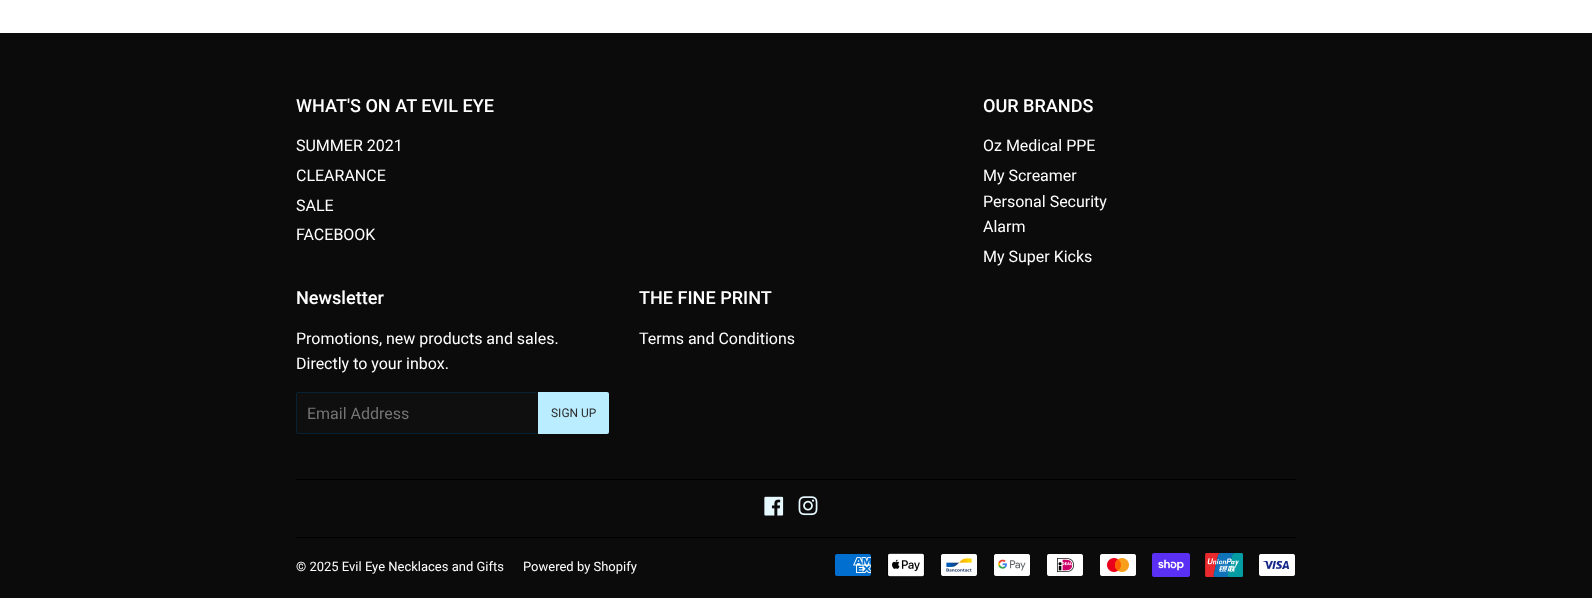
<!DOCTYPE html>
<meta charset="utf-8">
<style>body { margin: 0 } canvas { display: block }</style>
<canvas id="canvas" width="1592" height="598"></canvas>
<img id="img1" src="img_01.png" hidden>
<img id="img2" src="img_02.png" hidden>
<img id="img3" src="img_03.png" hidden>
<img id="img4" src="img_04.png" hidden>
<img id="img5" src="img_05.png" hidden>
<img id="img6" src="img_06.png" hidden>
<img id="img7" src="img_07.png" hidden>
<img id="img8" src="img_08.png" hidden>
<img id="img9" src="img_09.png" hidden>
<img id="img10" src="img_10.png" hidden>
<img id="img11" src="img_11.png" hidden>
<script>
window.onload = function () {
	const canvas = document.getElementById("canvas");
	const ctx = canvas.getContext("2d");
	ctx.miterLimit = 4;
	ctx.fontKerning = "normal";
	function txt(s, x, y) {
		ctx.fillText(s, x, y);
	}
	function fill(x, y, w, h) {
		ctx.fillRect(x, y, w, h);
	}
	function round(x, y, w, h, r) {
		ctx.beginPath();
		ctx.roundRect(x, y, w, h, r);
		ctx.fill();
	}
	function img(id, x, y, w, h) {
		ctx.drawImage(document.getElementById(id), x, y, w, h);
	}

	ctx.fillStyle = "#FFFFFF";
	fill(0, 0, 1592, 598);
	ctx.fillStyle = "#0B0B0B";
	fill(0, 33, 1592, 565);
	ctx.fillStyle = "#0F0F0F";
	round(296, 392, 242, 42, 2);
	ctx.fillStyle = "#072235";
	fill(297, 392, 240, 1);
	fill(297, 433, 240, 1);
	fill(296, 393, 1, 40);
	ctx.fillStyle = "#BAEDFF";
	ctx.beginPath();
	ctx.roundRect(538, 392, 71, 42, [0, 2, 2, 0]);
	ctx.fill();
	ctx.fillStyle = "#000000";
	fill(296, 479, 1000, 1);
	img("img1", 764, 496, 20, 20);
	img("img2", 798, 496, 20, 20);
	fill(296, 537, 1000, 1);
	img("img3", 835, 554, 36, 22);
	img("img4", 887, 553, 38, 24);
	img("img5", 941, 554, 36, 22);
	img("img6", 994, 554, 36, 22);
	img("img7", 1047, 554, 36, 22);
	img("img8", 1100, 554, 36, 22);
	img("img9", 1152, 553, 38, 24);
	img("img10", 1205, 553, 38, 24);
	img("img11", 1259, 554, 36, 22);
	ctx.font = "500 18.1px Roboto";
	ctx.fillStyle = "#FFFFFF";
	txt("WHAT'S ON AT EVIL EYE", 296, 112);
	ctx.font = "16px Roboto";
	txt("SUMMER 2021", 296, 151);
	txt("CLEARANCE", 296, 181);
	txt("SALE", 296, 211);
	txt("FACEBOOK", 296, 240);
	ctx.font = "500 18.1px Roboto";
	txt("OUR BRANDS", 983, 112);
	ctx.font = "16px Roboto";
	txt("Oz Medical PPE", 983, 151);
	txt("My Screamer", 983, 181);
	txt("Personal Security", 983, 207);
	txt("Alarm", 983, 232);
	txt("My Super Kicks", 983, 262);
	ctx.font = "500 18.1px Roboto";
	txt("Newsletter", 296, 304);
	ctx.font = "16px Roboto";
	txt("Promotions, new products and sales.", 296, 344);
	txt("Directly to your inbox.", 296, 369);
	ctx.fillStyle = "#757575";
	txt("Email Address", 307, 419);
	ctx.font = "12px Roboto";
	ctx.fillStyle = "#2F2F2F";
	txt("SIGN UP", 551, 417);
	ctx.font = "500 18.1px Roboto";
	ctx.fillStyle = "#FFFFFF";
	txt("THE FINE PRINT", 639, 304);
	ctx.font = "16px Roboto";
	txt("Terms and Conditions", 639, 344);
	ctx.font = "13px Roboto";
	txt("© 2025 Evil Eye Necklaces and Gifts", 296, 571);
	txt("Powered by Shopify", 523, 571);
};
</script>
